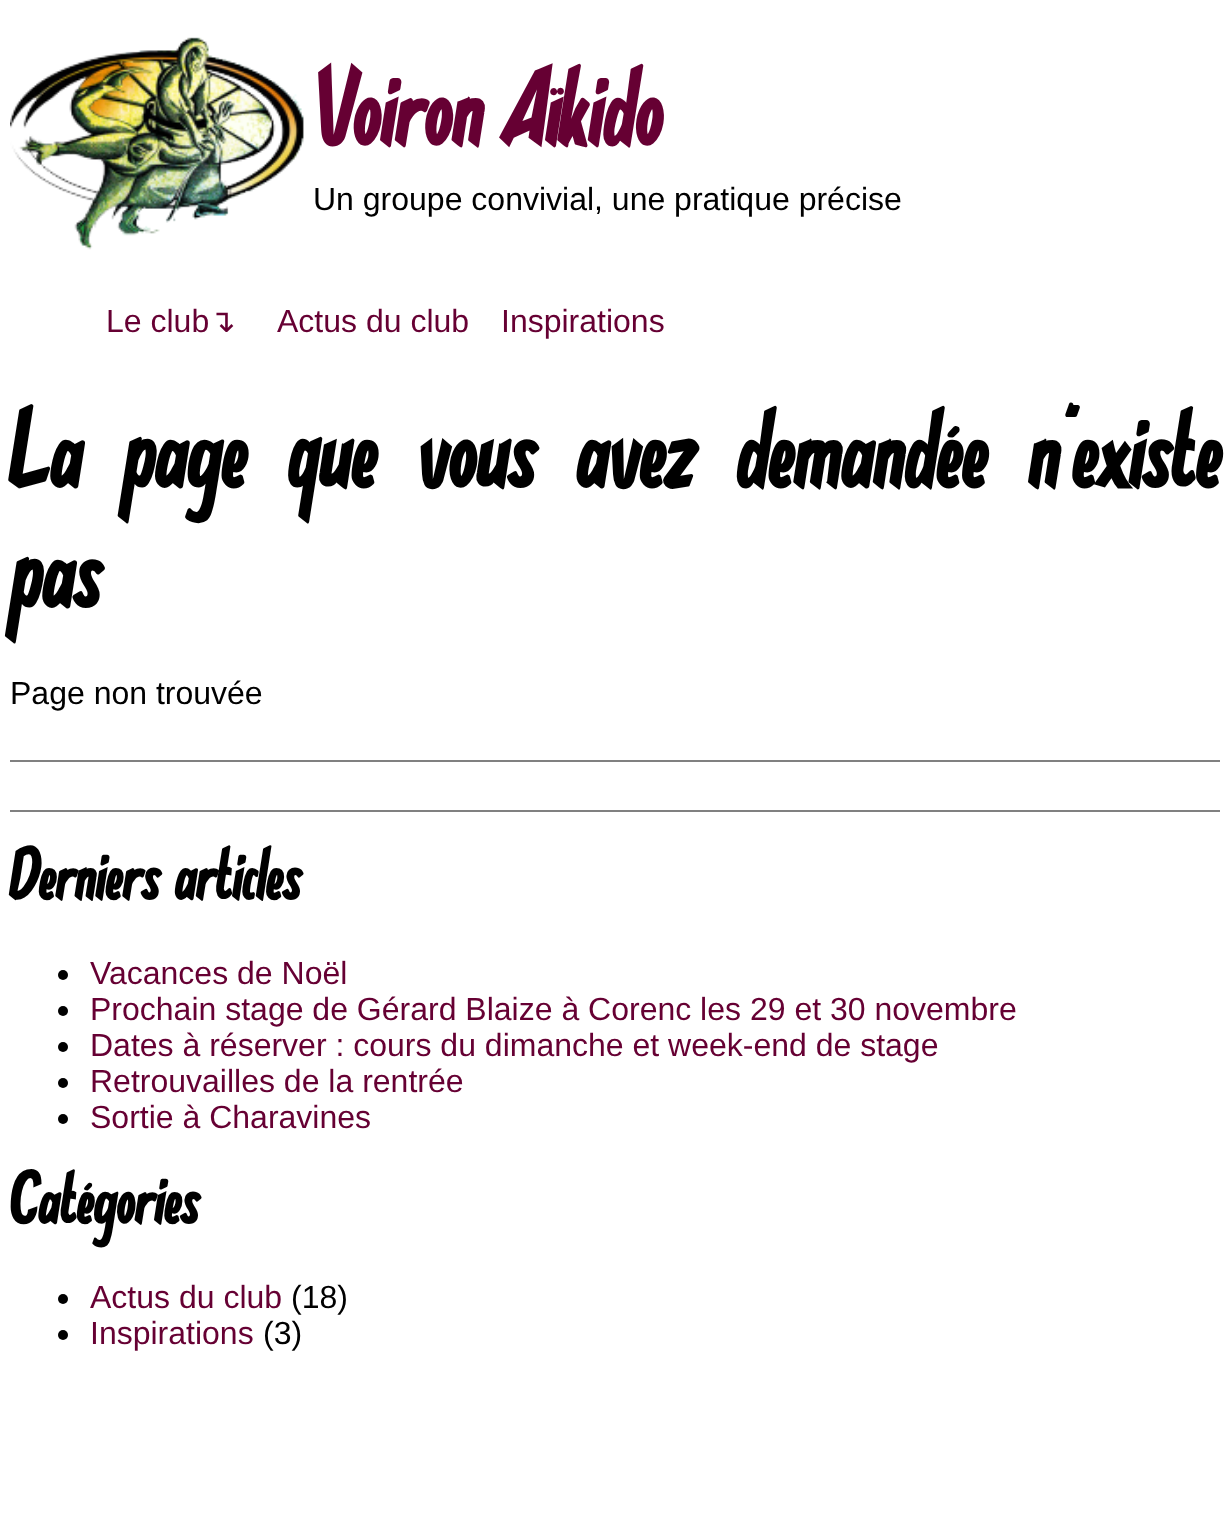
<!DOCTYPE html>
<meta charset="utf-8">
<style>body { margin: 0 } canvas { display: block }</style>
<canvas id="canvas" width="1229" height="1518"></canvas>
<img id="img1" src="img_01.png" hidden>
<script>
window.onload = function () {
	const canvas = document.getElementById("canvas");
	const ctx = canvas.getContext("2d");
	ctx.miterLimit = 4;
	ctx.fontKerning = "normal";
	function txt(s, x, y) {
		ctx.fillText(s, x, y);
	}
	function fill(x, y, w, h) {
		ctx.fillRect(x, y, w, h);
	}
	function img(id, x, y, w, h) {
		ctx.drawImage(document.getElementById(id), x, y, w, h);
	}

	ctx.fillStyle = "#FFFFFF";
	fill(0, 0, 1229, 1518);
	img("img1", 10, 37, 294, 213);
	ctx.fillStyle = "#808080";
	fill(10, 760, 1210, 2);
	fill(10, 810, 1210, 2);
	ctx.fillStyle = "#000000";
	ctx.beginPath();
	ctx.arc(63, 975, 5, 0, Math.PI * 2);
	ctx.fill();
	ctx.beginPath();
	ctx.arc(63, 1011, 5, 0, Math.PI * 2);
	ctx.fill();
	ctx.beginPath();
	ctx.arc(63, 1047, 5, 0, Math.PI * 2);
	ctx.fill();
	ctx.beginPath();
	ctx.arc(63, 1083, 5, 0, Math.PI * 2);
	ctx.fill();
	ctx.beginPath();
	ctx.arc(63, 1119, 5, 0, Math.PI * 2);
	ctx.fill();
	ctx.beginPath();
	ctx.arc(63, 1299, 5, 0, Math.PI * 2);
	ctx.fill();
	ctx.beginPath();
	ctx.arc(63, 1335, 5, 0, Math.PI * 2);
	ctx.fill();
	ctx.font = "bold 96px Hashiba";
	ctx.fillStyle = "#660033";
	txt("Voiron Aïkido", 313, 146);
	ctx.font = "32px Liberation Sans";
	ctx.fillStyle = "#000000";
	txt("Un groupe convivial, une pratique précise", 313, 210);
	ctx.fillStyle = "#660033";
	txt("Le club", 106, 332);
	ctx.font = "32px DejaVu Sans";
	txt("↴", 209, 332);
	ctx.font = "32px Liberation Sans";
	txt("Actus du club", 277, 332);
	txt("Inspirations", 501, 332);
	ctx.wordSpacing = "18.5px";
	ctx.font = "bold 96px Hashiba";
	ctx.fillStyle = "#000000";
	txt("La page que vous avez demandée n'existe", 10, 488);
	ctx.wordSpacing = "0px";
	txt("pas", 10, 608);
	ctx.font = "32px Liberation Sans";
	txt("Page non trouvée", 10, 704);
	ctx.font = "bold 64px Hashiba";
	txt("Derniers articles", 10, 900);
	ctx.font = "32px Liberation Sans";
	ctx.fillStyle = "#660033";
	txt("Vacances de Noël", 90, 984);
	txt("Prochain stage de Gérard Blaize à Corenc les 29 et 30 novembre", 90, 1020);
	txt("Dates à réserver : cours du dimanche et week-end de stage", 90, 1056);
	txt("Retrouvailles de la rentrée", 90, 1092);
	txt("Sortie à Charavines", 90, 1128);
	ctx.font = "bold 64px Hashiba";
	ctx.fillStyle = "#000000";
	txt("Catégories", 10, 1224);
	ctx.font = "32px Liberation Sans";
	ctx.fillStyle = "#660033";
	txt("Actus du club", 90, 1308);
	ctx.fillStyle = "#000000";
	txt("(18)", 291, 1308);
	ctx.fillStyle = "#660033";
	txt("Inspirations", 90, 1344);
	ctx.fillStyle = "#000000";
	txt("(3)", 263, 1344);
};
</script>
